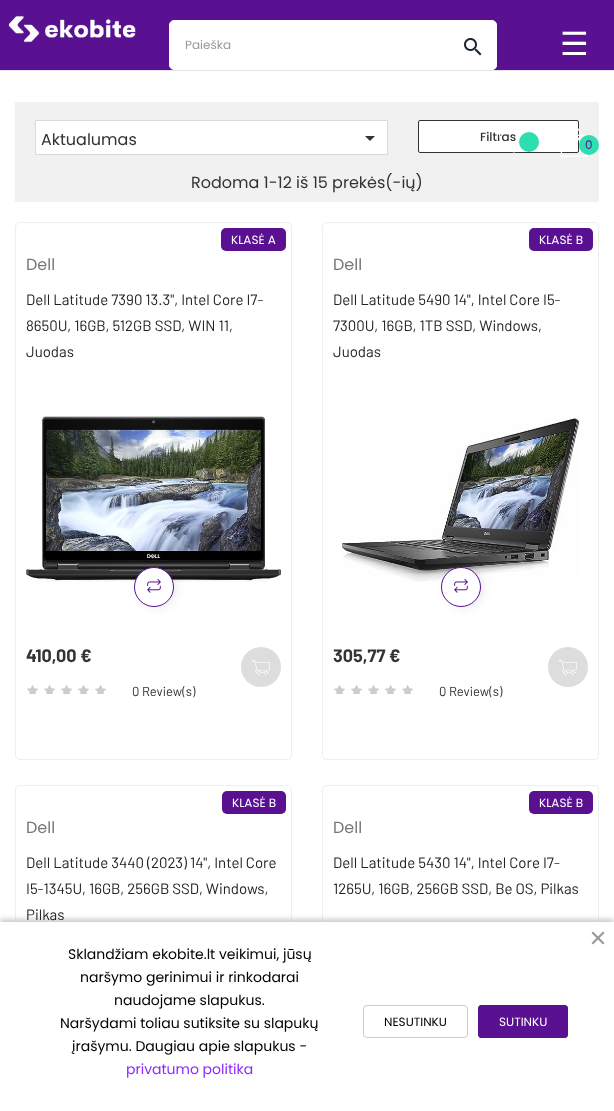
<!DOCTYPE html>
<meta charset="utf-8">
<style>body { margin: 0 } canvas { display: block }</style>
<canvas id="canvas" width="614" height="1111"></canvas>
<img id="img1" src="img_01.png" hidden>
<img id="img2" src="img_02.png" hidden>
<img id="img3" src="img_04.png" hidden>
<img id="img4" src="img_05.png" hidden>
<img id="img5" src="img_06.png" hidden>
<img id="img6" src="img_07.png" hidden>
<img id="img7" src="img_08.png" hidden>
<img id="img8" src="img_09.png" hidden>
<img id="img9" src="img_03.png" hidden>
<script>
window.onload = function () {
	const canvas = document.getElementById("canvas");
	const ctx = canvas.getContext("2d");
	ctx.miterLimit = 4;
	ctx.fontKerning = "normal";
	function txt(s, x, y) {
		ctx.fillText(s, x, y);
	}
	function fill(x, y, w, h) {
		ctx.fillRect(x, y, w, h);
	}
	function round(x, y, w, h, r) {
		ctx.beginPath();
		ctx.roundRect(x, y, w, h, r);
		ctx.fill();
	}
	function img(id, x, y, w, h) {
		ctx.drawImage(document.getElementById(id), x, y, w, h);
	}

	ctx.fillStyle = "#FFFFFF";
	fill(0, 0, 614, 1111);
	ctx.fillStyle = "#591091";
	fill(0, 0, 614, 70);
	ctx.fillStyle = "#E3E3E3";
	fill(0, 70, 614, 1);
	img("img1", 8, 15, 128, 28);
	ctx.fillStyle = "#FFFFFF";
	ctx.beginPath();
	ctx.roundRect(169.5, 20.5, 327, 49, 4.5);
	ctx.fill();
	ctx.strokeStyle = "#FFFFFF";
	ctx.stroke();
	ctx.beginPath();
	ctx.roundRect(449, 21, 48, 49, [0, 5, 5, 0]);
	ctx.fill();
	img("img2", 464, 38, 18, 18);
	ctx.fillStyle = "#F1F1F1";
	fill(15, 102, 584, 100);
	ctx.fillStyle = "#FFFFFF";
	ctx.beginPath();
	ctx.roundRect(418.5, 120.5, 160, 32, 1.5);
	ctx.fill();
	ctx.strokeStyle = "#333333";
	ctx.stroke();
	ctx.fillStyle = "#2DDFAF";
	ctx.beginPath();
	ctx.arc(529, 142, 10, 0, Math.PI * 2);
	ctx.fill();
	img("img3", 560, 128, 28, 29);
	ctx.beginPath();
	ctx.arc(589, 145, 10, 0, Math.PI * 2);
	ctx.fill();
	ctx.fillStyle = "#FFFFFF";
	ctx.beginPath();
	ctx.rect(35.5, 120.5, 352, 34);
	ctx.fill();
	ctx.strokeStyle = "#D9D9D9";
	ctx.stroke();
	ctx.fillStyle = "#333333";
	ctx.beginPath();
	ctx.moveTo(365, 136);
	ctx.lineTo(375, 136);
	ctx.lineTo(370, 141);
	ctx.closePath();
	ctx.fill();
	ctx.beginPath();
	ctx.roundRect(15.5, 222.5, 276, 537, 4.5);
	ctx.strokeStyle = "#EEEEEE";
	ctx.stroke();
	ctx.fillStyle = "#591091";
	round(221, 228, 65, 23, 5);
	img("img4", 26, 416, 255, 166);
	ctx.fillStyle = "rgba(0, 0, 0, 0.08)";
	ctx.filter = "blur(4px)";
	ctx.beginPath();
	ctx.roundRect(137, 568, 40, 40, 20);
	ctx.fill();
	ctx.filter = "none";
	ctx.fillStyle = "#FFFFFF";
	ctx.beginPath();
	ctx.arc(154, 587, 19.5, 0, Math.PI * 2);
	ctx.fill();
	ctx.strokeStyle = "#591091";
	ctx.stroke();
	img("img5", 147, 579, 14, 14);
	img("img6", 27, 685, 11, 9);
	img("img6", 44, 685, 11, 9);
	img("img6", 61, 685, 11, 9);
	img("img6", 78, 685, 11, 9);
	img("img6", 95, 685, 11, 9);
	ctx.fillStyle = "#DDDDDD";
	ctx.beginPath();
	ctx.arc(261, 667, 20, 0, Math.PI * 2);
	ctx.fill();
	img("img7", 252, 659, 18, 16);
	ctx.beginPath();
	ctx.roundRect(322.5, 222.5, 276, 537, 4.5);
	ctx.strokeStyle = "#EEEEEE";
	ctx.stroke();
	ctx.fillStyle = "#591091";
	round(529, 228, 64, 23, 5);
	img("img8", 342, 417, 238, 165);
	ctx.fillStyle = "rgba(0, 0, 0, 0.08)";
	ctx.filter = "blur(4px)";
	ctx.beginPath();
	ctx.roundRect(444, 568, 40, 40, 20);
	ctx.fill();
	ctx.filter = "none";
	ctx.fillStyle = "#FFFFFF";
	ctx.beginPath();
	ctx.arc(461, 587, 19.5, 0, Math.PI * 2);
	ctx.fill();
	ctx.strokeStyle = "#591091";
	ctx.stroke();
	img("img5", 454, 579, 14, 14);
	img("img6", 334, 685, 11, 9);
	img("img6", 351, 685, 11, 9);
	img("img6", 368, 685, 11, 9);
	img("img6", 385, 685, 11, 9);
	img("img6", 402, 685, 11, 9);
	ctx.fillStyle = "#DDDDDD";
	ctx.beginPath();
	ctx.arc(568, 667, 20, 0, Math.PI * 2);
	ctx.fill();
	img("img7", 559, 659, 18, 16);
	ctx.beginPath();
	ctx.roundRect(15.5, 785.5, 276, 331, 4.5);
	ctx.strokeStyle = "#EEEEEE";
	ctx.stroke();
	ctx.fillStyle = "#591091";
	round(222, 791, 64, 23, 5);
	ctx.beginPath();
	ctx.roundRect(322.5, 785.5, 276, 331, 4.5);
	ctx.stroke();
	round(529, 791, 64, 23, 5);
	ctx.fillStyle = "#CCCCCC";
	ctx.filter = "blur(2.5px)";
	ctx.beginPath();
	ctx.rect(0, 919, 614, 189);
	ctx.fill();
	ctx.filter = "none";
	ctx.fillStyle = "#FFFFFF";
	fill(0, 922, 614, 189);
	ctx.fillStyle = "#999999";
	ctx.beginPath();
	ctx.moveTo(591.5, 943);
	ctx.lineTo(603, 931.5);
	ctx.lineTo(604.5, 933);
	ctx.lineTo(593, 944.5);
	ctx.closePath();
	ctx.fill();
	ctx.beginPath();
	ctx.moveTo(593, 931.5);
	ctx.lineTo(604.5, 943);
	ctx.lineTo(603, 944.5);
	ctx.lineTo(591.5, 933);
	ctx.closePath();
	ctx.fill();
	ctx.beginPath();
	ctx.roundRect(363.5, 1005.5, 104, 32, 3.5);
	ctx.strokeStyle = "#CCCCCC";
	ctx.stroke();
	ctx.fillStyle = "#591091";
	ctx.beginPath();
	ctx.roundRect(478.5, 1005.5, 89, 32, 2.5);
	ctx.fill();
	ctx.strokeStyle = "#591091";
	ctx.stroke();
	ctx.font = "32px DejaVu Sans";
	ctx.fillStyle = "#FFFFFF";
	txt("☰", 560, 55);
	ctx.font = "12px Poppins";
	ctx.fillStyle = "#999999";
	txt("Paieška", 185, 49);
	ctx.fillStyle = "#591091";
	txt("0", 585, 149);
	ctx.font = "16px Poppins";
	ctx.fillStyle = "#333333";
	txt("Aktualumas", 41, 145);
	ctx.font = "500 12px Poppins";
	txt("Filtras", 480, 141);
	img("img9", 499, 134, 16, 19);
	ctx.font = "16px Poppins";
	txt("Rodoma 1-12 iš 15 prekės(-ių)", 191, 188);
	ctx.font = "12px Poppins";
	ctx.fillStyle = "#FFFFFF";
	txt("KLASĖ A", 231, 244);
	ctx.font = "16px Poppins";
	ctx.fillStyle = "#777777";
	txt("Dell", 26, 270);
	ctx.font = "15px Barlow";
	ctx.fillStyle = "#222222";
	txt("Dell Latitude 7390 13.3\", Intel Core I7-", 26, 305);
	txt("8650U, 16GB, 512GB SSD, WIN 11,", 26, 331);
	txt("Juodas", 26, 357);
	ctx.font = "bold 18px Barlow";
	ctx.fillStyle = "#333333";
	txt("410,00 €", 26, 662);
	ctx.font = "13px Barlow";
	txt("0 Review(s)", 132, 696);
	ctx.font = "12px Poppins";
	ctx.fillStyle = "#FFFFFF";
	txt("KLASĖ B", 539, 244);
	ctx.font = "16px Poppins";
	ctx.fillStyle = "#777777";
	txt("Dell", 333, 270);
	ctx.font = "15px Barlow";
	ctx.fillStyle = "#222222";
	txt("Dell Latitude 5490 14\", Intel Core I5-", 333, 305);
	txt("7300U, 16GB, 1TB SSD, Windows,", 333, 331);
	txt("Juodas", 333, 357);
	ctx.font = "bold 18px Barlow";
	ctx.fillStyle = "#333333";
	txt("305,77 €", 333, 662);
	ctx.font = "13px Barlow";
	txt("0 Review(s)", 439, 696);
	ctx.font = "12px Poppins";
	ctx.fillStyle = "#FFFFFF";
	txt("KLASĖ B", 232, 807);
	ctx.font = "16px Poppins";
	ctx.fillStyle = "#777777";
	txt("Dell", 26, 833);
	ctx.font = "15px Barlow";
	ctx.fillStyle = "#222222";
	txt("Dell Latitude 3440 (2023) 14\", Intel Core", 26, 868);
	txt("I5-1345U, 16GB, 256GB SSD, Windows,", 26, 894);
	txt("Pilkas", 26, 920);
	ctx.font = "12px Poppins";
	ctx.fillStyle = "#FFFFFF";
	txt("KLASĖ B", 539, 807);
	ctx.font = "16px Poppins";
	ctx.fillStyle = "#777777";
	txt("Dell", 333, 833);
	ctx.font = "15px Barlow";
	ctx.fillStyle = "#222222";
	txt("Dell Latitude 5430 14\", Intel Core I7-", 333, 868);
	txt("1265U, 16GB, 256GB SSD, Be OS, Pilkas", 333, 894);
	ctx.font = "14px Poppins";
	ctx.fillStyle = "#000000";
	txt("Sklandžiam ekobite.lt veikimui, jūsų", 68, 959);
	txt("naršymo gerinimui ir rinkodarai", 80, 982);
	txt("naudojame slapukus.", 114, 1005);
	txt("Naršydami toliau sutiksite su slapukų", 60, 1028);
	txt("įrašymu. Daugiau apie slapukus -", 72, 1051);
	ctx.fillStyle = "#8F28FE";
	txt("privatumo politika", 126, 1074);
	ctx.font = "12px Poppins";
	ctx.fillStyle = "#000000";
	txt("NESUTINKU", 384, 1026);
	ctx.fillStyle = "#FFFFFF";
	txt("SUTINKU", 499, 1026);
};
</script>
